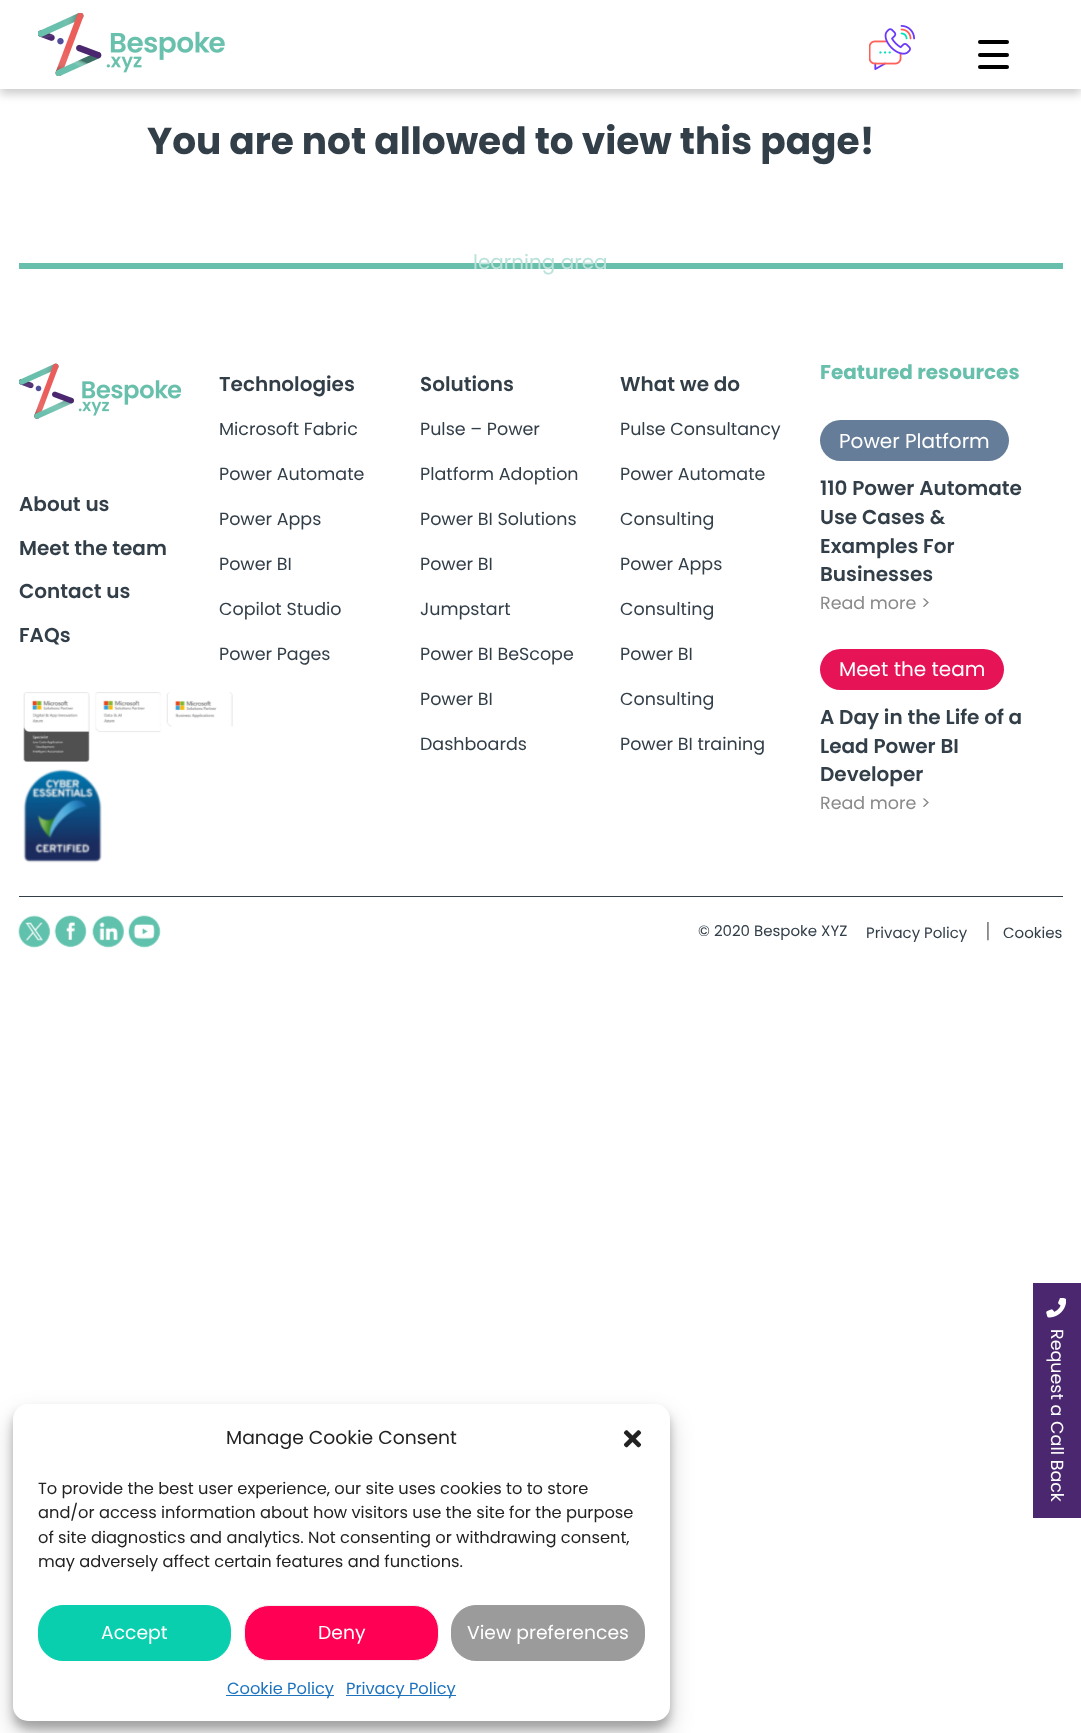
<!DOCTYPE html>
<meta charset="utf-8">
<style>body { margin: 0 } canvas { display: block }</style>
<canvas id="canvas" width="1081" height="1733"></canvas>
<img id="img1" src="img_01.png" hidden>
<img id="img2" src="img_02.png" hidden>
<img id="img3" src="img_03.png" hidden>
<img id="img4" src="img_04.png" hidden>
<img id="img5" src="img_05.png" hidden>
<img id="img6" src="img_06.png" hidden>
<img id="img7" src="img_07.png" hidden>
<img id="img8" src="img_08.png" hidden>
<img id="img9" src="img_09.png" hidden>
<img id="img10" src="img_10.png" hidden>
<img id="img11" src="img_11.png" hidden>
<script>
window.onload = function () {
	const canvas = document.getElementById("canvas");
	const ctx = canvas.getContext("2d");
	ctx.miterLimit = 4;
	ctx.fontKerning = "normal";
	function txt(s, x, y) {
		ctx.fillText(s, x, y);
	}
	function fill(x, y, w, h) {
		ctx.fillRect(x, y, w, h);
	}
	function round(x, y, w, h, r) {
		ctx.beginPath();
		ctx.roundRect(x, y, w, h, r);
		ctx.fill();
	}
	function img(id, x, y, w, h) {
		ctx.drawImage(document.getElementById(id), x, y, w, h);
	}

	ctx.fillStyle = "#FFFFFF";
	fill(0, 0, 1081, 1733);
	ctx.fillStyle = "rgba(0, 0, 0, 0.2)";
	ctx.filter = "blur(5px)";
	ctx.beginPath();
	ctx.rect(0, 5, 1081, 89);
	ctx.fill();
	ctx.filter = "none";
	ctx.fillStyle = "#FFFFFF";
	fill(0, 0, 1081, 89);
	img("img1", 38, 13, 187, 63);
	img("img2", 869, 25, 46, 45);
	ctx.fillStyle = "#000000";
	round(978, 53, 31, 4, 2);
	round(978, 40, 31, 4, 2);
	round(978, 65, 31, 4, 2);
	ctx.fillStyle = "#68BFAC";
	fill(19, 263, 1044, 6);
	ctx.fillStyle = "#323E48";
	fill(19, 896, 1044, 1);
	img("img3", 19, 363, 162, 56);
	img("img4", 23, 692, 210, 70);
	img("img5", 23, 769, 79, 94);
	ctx.fillStyle = "#657D99";
	round(820, 420, 189, 41, 20.5);
	ctx.fillStyle = "#E61357";
	round(820, 649, 184, 41, 20.5);
	img("img6", 18, 915, 33, 33);
	img("img7", 54, 915, 33, 33);
	img("img8", 92, 915, 32, 33);
	img("img9", 128, 915, 33, 33);
	ctx.fillStyle = "rgba(0, 0, 0, 0.23)";
	ctx.filter = "blur(4px)";
	ctx.beginPath();
	ctx.roundRect(13, 1411, 657, 318, 15);
	ctx.fill();
	ctx.filter = "none";
	ctx.fillStyle = "rgba(0, 0, 0, 0.19)";
	ctx.filter = "blur(12.5px)";
	ctx.beginPath();
	ctx.roundRect(13, 1416, 657, 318, 15);
	ctx.fill();
	ctx.filter = "none";
	ctx.fillStyle = "#FFFFFF";
	round(13, 1404, 657, 317, 15);
	img("img10", 623, 1430, 19, 18);
	ctx.fillStyle = "#0ACFAF";
	ctx.beginPath();
	ctx.roundRect(38.5, 1605.5, 192, 55, 24.5);
	ctx.fill();
	ctx.strokeStyle = "#0ACFAF";
	ctx.stroke();
	ctx.fillStyle = "#FF0054";
	ctx.beginPath();
	ctx.roundRect(244.5, 1605.5, 194, 55, 24.5);
	ctx.fill();
	ctx.strokeStyle = "#F2F2F2";
	ctx.stroke();
	ctx.fillStyle = "#9B9B9B";
	ctx.beginPath();
	ctx.roundRect(451.5, 1605.5, 193, 55, 24.5);
	ctx.fill();
	ctx.strokeStyle = "#9B9B9B";
	ctx.stroke();
	ctx.fillStyle = "#1E73BE";
	fill(226, 1695, 108, 1);
	fill(346, 1695, 110, 1);
	ctx.fillStyle = "#4B2770";
	fill(1033, 1283, 48, 235);
	img("img11", 1046, 1298, 20, 20);
	ctx.font = "bold 37.5px Poppins";
	ctx.fillStyle = "#323E48";
	txt("You are not allowed to view this page!", 147, 154);
	ctx.font = "20px Poppins";
	ctx.fillStyle = "#BAE2D9";
	txt("learning area", 473, 269);
	ctx.font = "600 20px Poppins";
	ctx.fillStyle = "#323E48";
	txt("About us", 19, 511);
	txt("Meet the team", 19, 555);
	txt("Contact us", 19, 598);
	txt("FAQs", 19, 642);
	txt("Technologies", 219, 391);
	ctx.font = "17.5px Poppins";
	txt("Microsoft Fabric", 219, 435);
	txt("Power Automate", 219, 480);
	txt("Power Apps", 219, 525);
	txt("Power BI", 219, 570);
	txt("Copilot Studio", 219, 615);
	txt("Power Pages", 219, 660);
	ctx.font = "600 20px Poppins";
	txt("Solutions", 420, 391);
	ctx.font = "17.5px Poppins";
	txt("Pulse – Power", 420, 435);
	txt("Platform Adoption", 420, 480);
	txt("Power BI Solutions", 420, 525);
	txt("Power BI", 420, 570);
	txt("Jumpstart", 420, 615);
	txt("Power BI BeScope", 420, 660);
	txt("Power BI", 420, 705);
	txt("Dashboards", 420, 750);
	ctx.font = "600 20px Poppins";
	txt("What we do", 620, 391);
	ctx.font = "17.5px Poppins";
	txt("Pulse Consultancy", 620, 435);
	txt("Power Automate", 620, 480);
	txt("Consulting", 620, 525);
	txt("Power Apps", 620, 570);
	txt("Consulting", 620, 615);
	txt("Power BI", 620, 660);
	txt("Consulting", 620, 705);
	txt("Power BI training", 620, 750);
	ctx.font = "bold 20px Poppins";
	ctx.fillStyle = "#68BFAC";
	txt("Featured resources", 820, 379);
	ctx.font = "20px Poppins";
	ctx.fillStyle = "#FFFFFF";
	txt("Power Platform", 839, 448);
	ctx.font = "600 20px Poppins";
	ctx.fillStyle = "#323E48";
	txt("110 Power Automate", 820, 495);
	txt("Use Cases &", 820, 524);
	txt("Examples For", 820, 553);
	txt("Businesses", 820, 581);
	ctx.font = "17.5px Poppins";
	ctx.fillStyle = "#8A8A8A";
	txt("Read more >", 820, 609);
	ctx.font = "20px Poppins";
	ctx.fillStyle = "#FFFFFF";
	txt("Meet the team", 839, 676);
	ctx.font = "600 20px Poppins";
	ctx.fillStyle = "#323E48";
	txt("A Day in the Life of a", 820, 724);
	txt("Lead Power BI", 820, 753);
	txt("Developer", 820, 781);
	ctx.font = "17.5px Poppins";
	ctx.fillStyle = "#8A8A8A";
	txt("Read more >", 820, 809);
	ctx.font = "15px Poppins";
	ctx.fillStyle = "#323E48";
	txt("© 2020 Bespoke XYZ", 698, 936);
	txt("Privacy Policy", 866, 938);
	ctx.font = "20px Poppins";
	ctx.fillStyle = "#8A8A8A";
	txt("|", 985, 938);
	ctx.font = "15px Poppins";
	ctx.fillStyle = "#323E48";
	txt("Cookies", 1003, 938);
	ctx.font = "18.75px Poppins";
	ctx.fillStyle = "#222222";
	txt("Manage Cookie Consent", 226, 1444);
	ctx.font = "16.25px Poppins";
	txt("To provide the best user experience, our site uses cookies to to store", 38, 1494);
	txt("and/or access information about how visitors use the site for the purpose", 38, 1518);
	txt("of site diagnostics and analytics. Not consenting or withdrawing consent,", 38, 1543);
	txt("may adversely affect certain features and functions.", 38, 1567);
	ctx.font = "18.75px Poppins";
	ctx.fillStyle = "#FFFFFF";
	txt("Accept", 101, 1639);
	txt("Deny", 318, 1639);
	txt("View preferences", 467, 1639);
	ctx.font = "16.25px Poppins";
	ctx.fillStyle = "#1E73BE";
	txt("Cookie Policy", 227, 1694);
	txt("Privacy Policy", 346, 1694);
	ctx.font = "17.5px Poppins";
	ctx.fillStyle = "#FFFFFF";
	ctx.save();
	ctx.translate(1051, 1329);
	ctx.rotate(90 * Math.PI / 180);
	ctx.fillText("Request a Call Back", 0, 0);
	ctx.restore();
};
</script>
